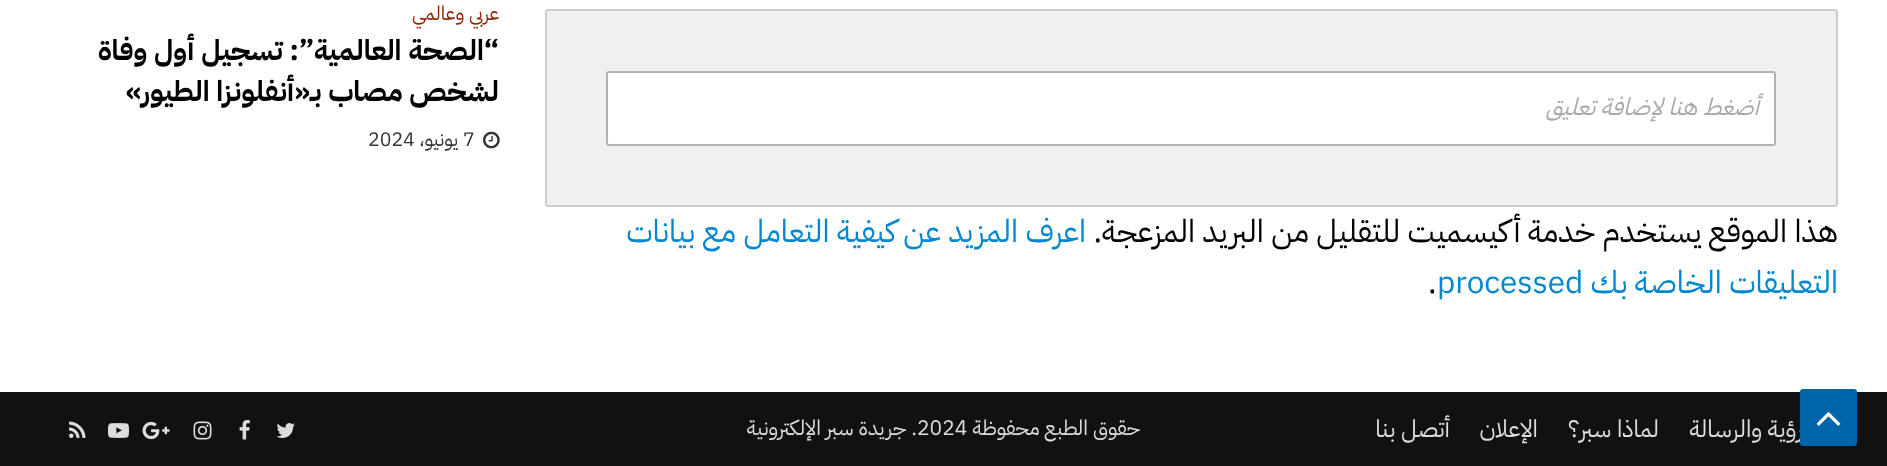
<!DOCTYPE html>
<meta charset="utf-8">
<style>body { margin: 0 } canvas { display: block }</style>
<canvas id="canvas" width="1887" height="466"></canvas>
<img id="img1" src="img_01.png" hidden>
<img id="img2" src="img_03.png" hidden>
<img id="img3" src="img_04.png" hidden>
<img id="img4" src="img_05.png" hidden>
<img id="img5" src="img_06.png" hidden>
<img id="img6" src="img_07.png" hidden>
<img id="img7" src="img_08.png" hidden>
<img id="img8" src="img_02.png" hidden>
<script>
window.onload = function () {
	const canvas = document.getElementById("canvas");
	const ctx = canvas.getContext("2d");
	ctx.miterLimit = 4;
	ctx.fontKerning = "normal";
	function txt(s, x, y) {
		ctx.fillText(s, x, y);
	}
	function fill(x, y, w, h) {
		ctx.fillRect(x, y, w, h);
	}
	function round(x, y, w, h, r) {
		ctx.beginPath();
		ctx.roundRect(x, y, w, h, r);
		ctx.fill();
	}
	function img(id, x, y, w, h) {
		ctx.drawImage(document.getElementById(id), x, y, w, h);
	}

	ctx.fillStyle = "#FFFFFF";
	fill(0, 0, 1887, 466);
	img("img1", 483, 131, 17, 18);
	ctx.fillStyle = "#F0F0F0";
	round(545, 9, 1293, 198, 3);
	ctx.beginPath();
	ctx.roundRect(546, 10, 1291, 196, 2);
	ctx.strokeStyle = "rgba(0, 0, 0, 0.15)";
	ctx.lineWidth = 2;
	ctx.stroke();
	ctx.fillStyle = "#FFFFFF";
	round(606, 71, 1170, 75, 3);
	ctx.beginPath();
	ctx.roundRect(607, 72, 1168, 73, 2);
	ctx.strokeStyle = "rgba(0, 0, 0, 0.3)";
	ctx.stroke();
	ctx.fillStyle = "#111111";
	fill(0, 392, 1887, 74);
	img("img2", 276, 423, 19, 15);
	img("img3", 239, 420, 11, 20);
	img("img4", 193, 421, 19, 19);
	img("img5", 142, 421, 28, 19);
	img("img6", 108, 423, 21, 15);
	img("img7", 69, 421, 17, 17);
	ctx.direction = "rtl";
	ctx.font = "19.5px IBM Plex Sans Arabic";
	ctx.fillStyle = "#8C2500";
	txt("عربي وعالمي", 499, 20);
	ctx.font = "bold 28.5px IBM Plex Sans Arabic";
	ctx.fillStyle = "#000000";
	txt("“الصحة العالمية”: تسجيل أول وفاة", 499, 60);
	txt("لشخص مصاب بـ«أنفلونزا الطيور»", 499, 101);
	ctx.direction = "ltr";
	ctx.font = "19.5px IBM Plex Sans Arabic";
	ctx.fillStyle = "#353434";
	txt("7", 463, 146);
	ctx.direction = "rtl";
	txt("يونيو،", 458, 146);
	ctx.direction = "ltr";
	txt("2024", 368, 146);
	ctx.direction = "rtl";
	ctx.font = "italic 24px IBM Plex Sans Arabic";
	ctx.fillStyle = "#AAAAAA";
	txt("أضغط هنا لإضافة تعليق", 1759, 115);
	ctx.font = "31.5px IBM Plex Sans Arabic";
	ctx.fillStyle = "#000000";
	txt("هذا الموقع يستخدم خدمة أكيسميت للتقليل من البريد المزعجة.", 1838, 242);
	ctx.fillStyle = "#0288D1";
	txt("اعرف المزيد عن كيفية التعامل مع بيانات", 1086, 242);
	txt("التعليقات الخاصة بك", 1838, 293);
	ctx.direction = "ltr";
	txt("processed", 1437, 293);
	ctx.fillStyle = "#000000";
	txt(".", 1428, 293);
	ctx.direction = "rtl";
	ctx.font = "24px IBM Plex Sans Arabic";
	ctx.fillStyle = "#DDDDDD";
	txt("الرؤية والرسالة", 1816, 437);
	ctx.fillStyle = "#0065A8";
	round(1800, 389, 57, 57, 3);
	img("img8", 1816, 412, 25, 14);
	ctx.fillStyle = "#DDDDDD";
	txt("لماذا سبر؟", 1659, 437);
	txt("الإعلان", 1538, 437);
	txt("أتصل بنا", 1450, 437);
	ctx.font = "21px IBM Plex Sans Arabic";
	txt("حقوق الطبع محفوظة", 1140, 435);
	ctx.direction = "ltr";
	txt("2024", 917, 435);
	ctx.direction = "rtl";
	txt(". جريدة سبر الإلكترونية", 917, 435);
};
</script>
